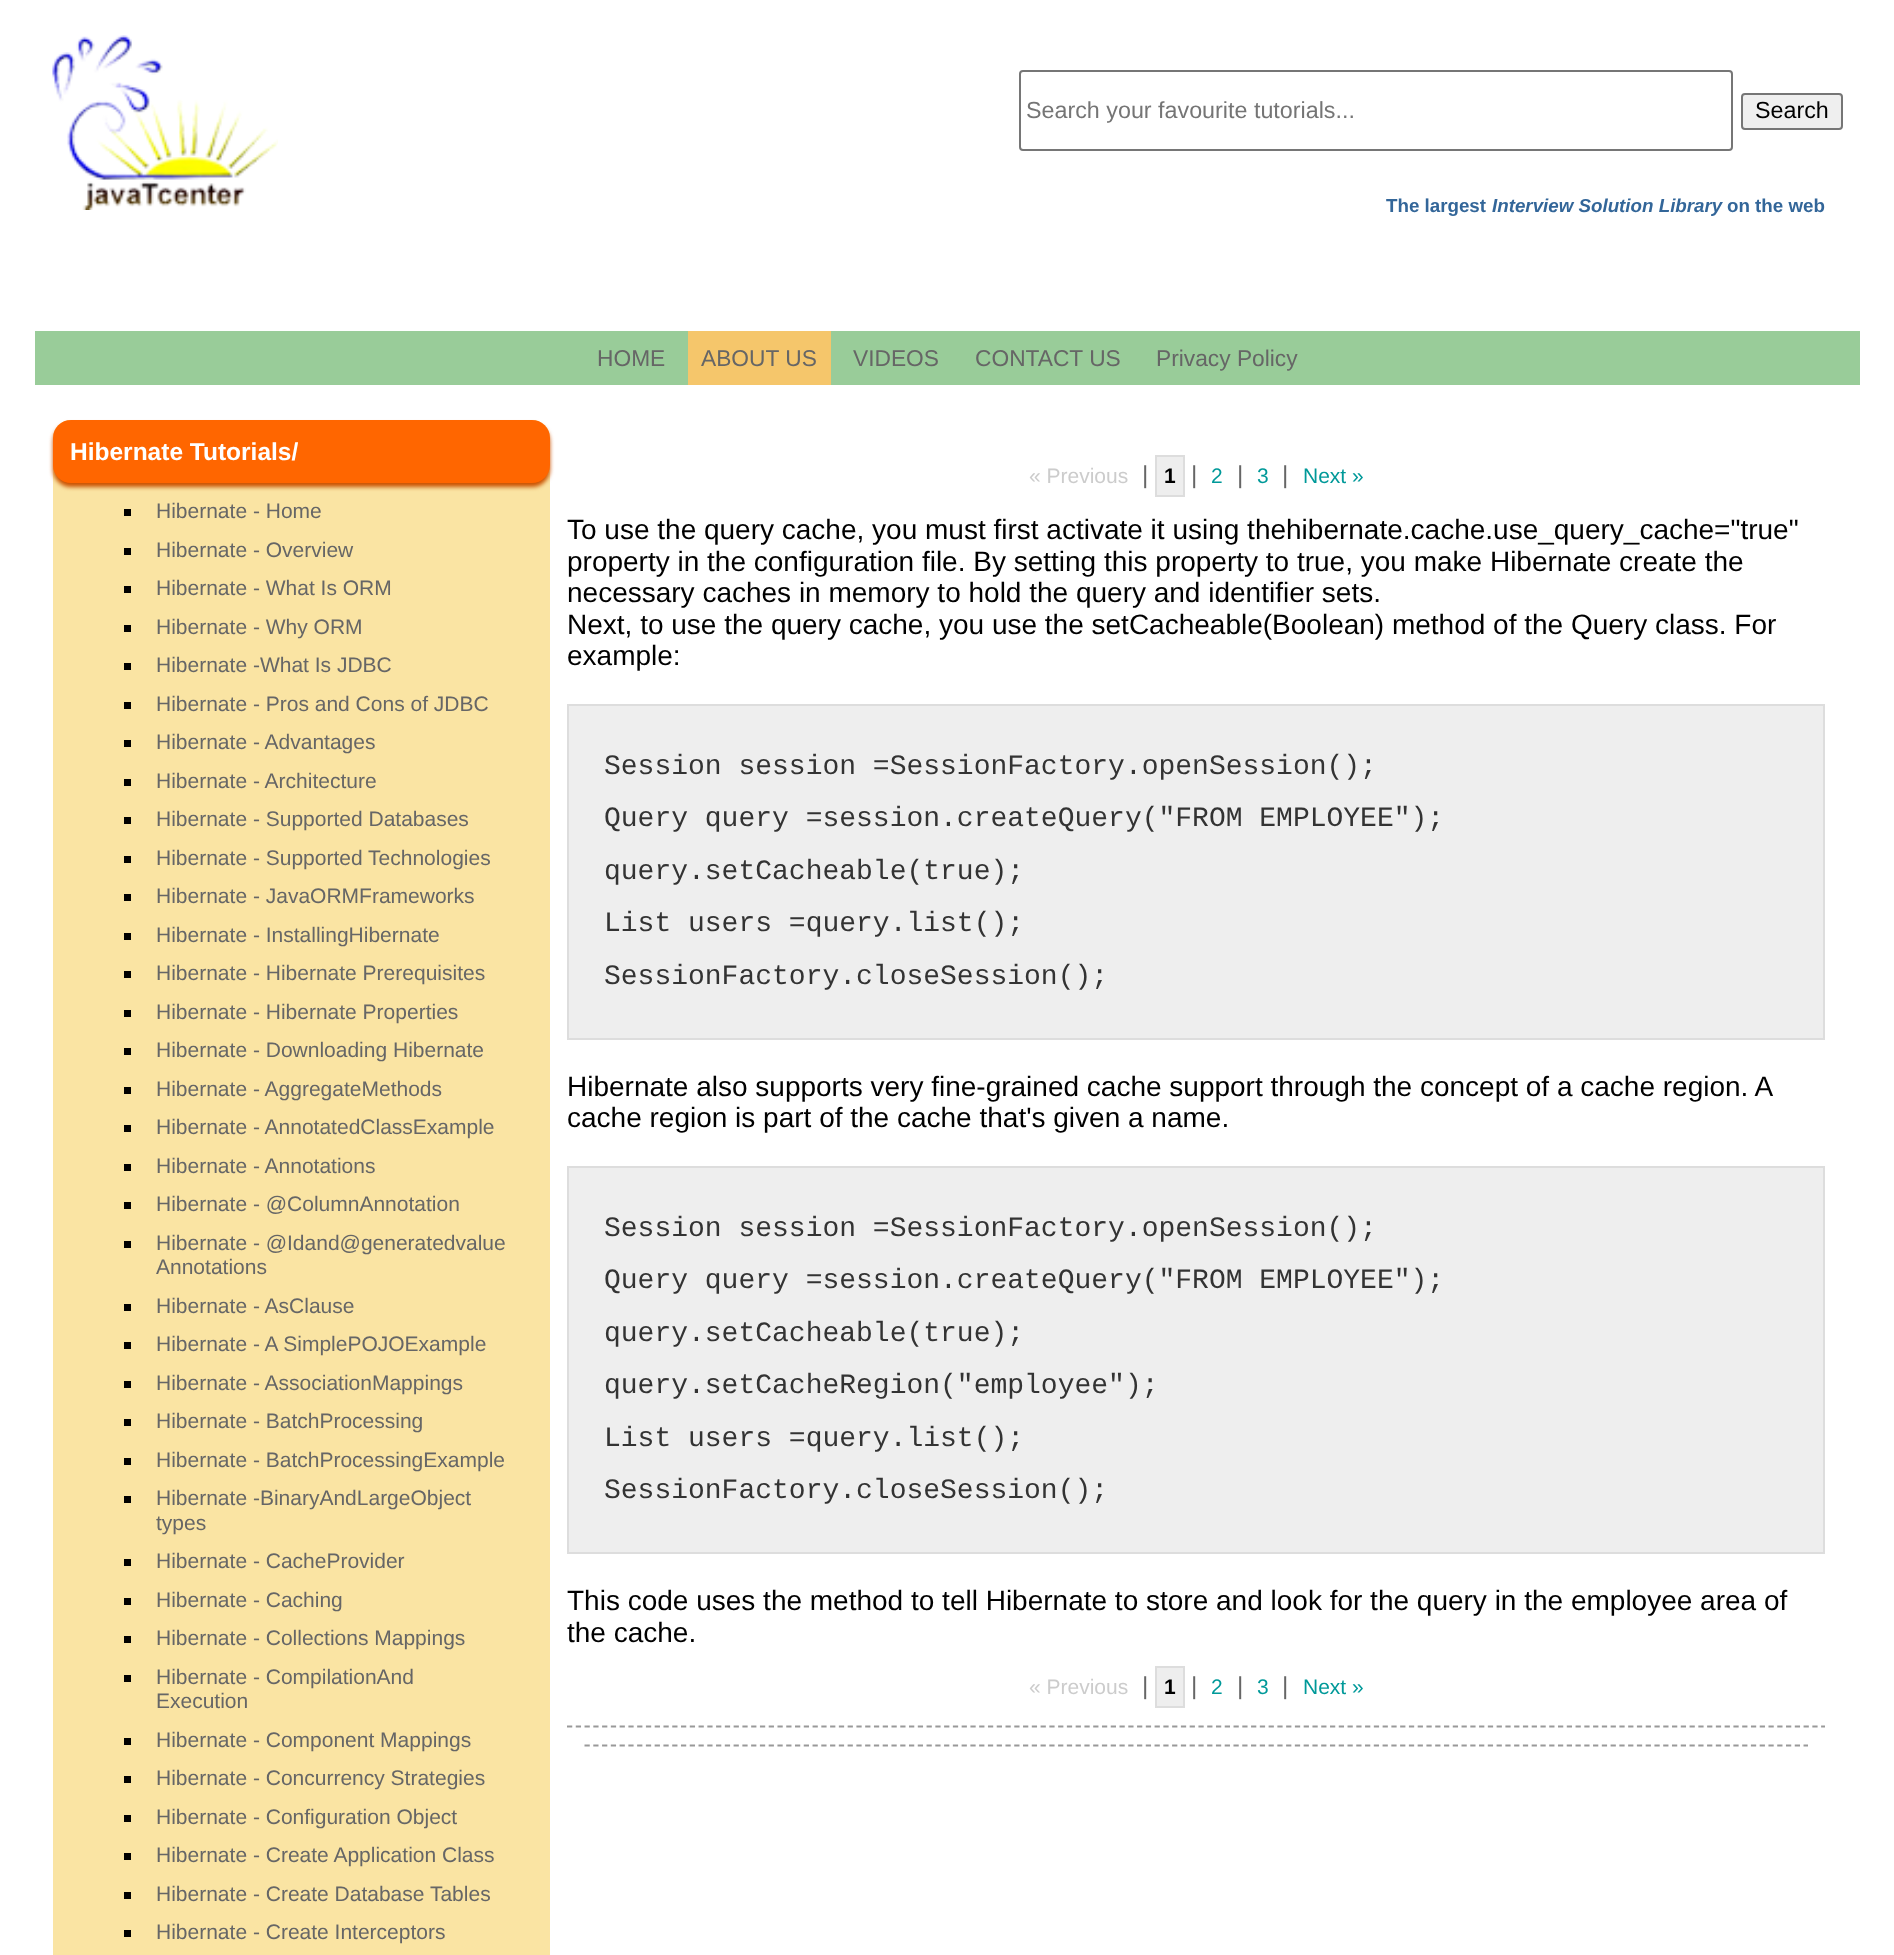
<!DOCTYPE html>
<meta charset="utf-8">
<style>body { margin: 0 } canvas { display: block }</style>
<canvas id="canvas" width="1894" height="1955"></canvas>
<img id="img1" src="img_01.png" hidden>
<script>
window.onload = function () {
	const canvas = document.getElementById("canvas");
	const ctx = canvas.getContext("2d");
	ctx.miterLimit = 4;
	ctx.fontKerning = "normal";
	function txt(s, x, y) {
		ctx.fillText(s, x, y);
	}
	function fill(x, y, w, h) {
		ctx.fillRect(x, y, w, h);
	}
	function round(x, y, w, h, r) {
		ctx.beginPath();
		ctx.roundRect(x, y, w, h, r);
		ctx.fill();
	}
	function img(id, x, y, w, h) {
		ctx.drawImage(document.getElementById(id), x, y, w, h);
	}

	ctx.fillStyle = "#FFFFFF";
	fill(0, 0, 1894, 1955);
	img("img1", 52, 35, 226, 175);
	ctx.beginPath();
	ctx.roundRect(1020, 71, 712, 79, 3);
	ctx.strokeStyle = "#767676";
	ctx.lineWidth = 2;
	ctx.stroke();
	ctx.fillStyle = "#EFEFEF";
	ctx.beginPath();
	ctx.roundRect(1742, 94, 100, 35, 3);
	ctx.fill();
	ctx.stroke();
	ctx.fillStyle = "#99CC99";
	fill(35, 331, 1825, 54);
	ctx.fillStyle = "#F5C66B";
	fill(688, 331, 143, 54);
	ctx.fillStyle = "#FAE4A3";
	round(53, 420, 497, 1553, 18);
	ctx.fillStyle = "#CA5100";
	ctx.filter = "blur(2px)";
	ctx.beginPath();
	ctx.roundRect(53, 424, 497, 63, 18);
	ctx.fill();
	ctx.filter = "none";
	ctx.fillStyle = "#FF6600";
	round(53, 420, 497, 63, 18);
	ctx.fillStyle = "#000000";
	fill(124, 509, 7, 7);
	fill(124, 548, 7, 7);
	fill(124, 586, 7, 7);
	fill(124, 625, 7, 7);
	fill(124, 663, 7, 7);
	fill(124, 702, 7, 7);
	fill(124, 740, 7, 7);
	fill(124, 779, 7, 7);
	fill(124, 817, 7, 7);
	fill(124, 856, 7, 7);
	fill(124, 894, 7, 7);
	fill(124, 933, 7, 7);
	fill(124, 971, 7, 7);
	fill(124, 1010, 7, 7);
	fill(124, 1048, 7, 7);
	fill(124, 1087, 7, 7);
	fill(124, 1125, 7, 7);
	fill(124, 1164, 7, 7);
	fill(124, 1202, 7, 7);
	fill(124, 1241, 7, 7);
	fill(124, 1304, 7, 7);
	fill(124, 1342, 7, 7);
	fill(124, 1381, 7, 7);
	fill(124, 1419, 7, 7);
	fill(124, 1458, 7, 7);
	fill(124, 1496, 7, 7);
	fill(124, 1559, 7, 7);
	fill(124, 1598, 7, 7);
	fill(124, 1636, 7, 7);
	fill(124, 1675, 7, 7);
	fill(124, 1738, 7, 7);
	fill(124, 1776, 7, 7);
	fill(124, 1815, 7, 7);
	fill(124, 1853, 7, 7);
	fill(124, 1892, 7, 7);
	fill(124, 1930, 7, 7);
	ctx.fillStyle = "#EEEEEE";
	ctx.beginPath();
	ctx.rect(1156, 456, 28, 40);
	ctx.fill();
	ctx.strokeStyle = "#DDDDDD";
	ctx.stroke();
	ctx.beginPath();
	ctx.rect(568, 705, 1256, 334);
	ctx.fill();
	ctx.stroke();
	ctx.beginPath();
	ctx.rect(568, 1167, 1256, 386);
	ctx.fill();
	ctx.stroke();
	ctx.beginPath();
	ctx.rect(1156, 1667, 28, 40);
	ctx.fill();
	ctx.stroke();
	ctx.beginPath();
	ctx.moveTo(567, 1726.5);
	ctx.lineTo(1825, 1726.5);
	ctx.strokeStyle = "#999999";
	ctx.lineWidth = 1.8;
	ctx.setLineDash([5.25, 3.52]);
	ctx.stroke();
	ctx.beginPath();
	ctx.moveTo(584.5, 1745.5);
	ctx.lineTo(1808, 1745.5);
	ctx.stroke();
	ctx.font = "23.3px Liberation Sans";
	ctx.fillStyle = "#757575";
	txt("Search your favourite tutorials...", 1026, 118);
	ctx.fillStyle = "#000000";
	txt("Search", 1755, 118);
	ctx.font = "bold 18.75px Liberation Sans";
	ctx.fillStyle = "#336699";
	txt("The largest", 1386, 212);
	ctx.font = "italic bold 18.75px Liberation Sans";
	txt("Interview Solution Library", 1492, 212);
	ctx.font = "bold 18.75px Liberation Sans";
	txt("on the web", 1727, 212);
	ctx.font = "22.75px Liberation Sans";
	ctx.fillStyle = "#666666";
	txt("HOME", 597, 366);
	txt("ABOUT US", 701, 366);
	txt("VIDEOS", 853, 366);
	txt("CONTACT US", 975, 366);
	txt("Privacy Policy", 1156, 366);
	ctx.font = "bold 24.5px Liberation Sans";
	ctx.fillStyle = "#FFFFFF";
	txt("Hibernate Tutorials/", 70, 460);
	ctx.font = "21px Liberation Sans";
	ctx.fillStyle = "#666666";
	txt("Hibernate - Home", 156, 518);
	txt("Hibernate - Overview", 156, 557);
	txt("Hibernate - What Is ORM", 156, 595);
	txt("Hibernate - Why ORM", 156, 634);
	txt("Hibernate -What Is JDBC", 156, 672);
	txt("Hibernate - Pros and Cons of JDBC", 156, 711);
	txt("Hibernate - Advantages", 156, 749);
	txt("Hibernate - Architecture", 156, 788);
	txt("Hibernate - Supported Databases", 156, 826);
	txt("Hibernate - Supported Technologies", 156, 865);
	txt("Hibernate - JavaORMFrameworks", 156, 903);
	txt("Hibernate - InstallingHibernate", 156, 942);
	txt("Hibernate - Hibernate Prerequisites", 156, 980);
	txt("Hibernate - Hibernate Properties", 156, 1019);
	txt("Hibernate - Downloading Hibernate", 156, 1057);
	txt("Hibernate - AggregateMethods", 156, 1096);
	txt("Hibernate - AnnotatedClassExample", 156, 1134);
	txt("Hibernate - Annotations", 156, 1173);
	txt("Hibernate - @ColumnAnnotation", 156, 1211);
	txt("Hibernate - @Idand@generatedvalue", 156, 1250);
	txt("Annotations", 156, 1274);
	txt("Hibernate - AsClause", 156, 1313);
	txt("Hibernate - A SimplePOJOExample", 156, 1351);
	txt("Hibernate - AssociationMappings", 156, 1390);
	txt("Hibernate - BatchProcessing", 156, 1428);
	txt("Hibernate - BatchProcessingExample", 156, 1467);
	txt("Hibernate -BinaryAndLargeObject", 156, 1505);
	txt("types", 156, 1530);
	txt("Hibernate - CacheProvider", 156, 1568);
	txt("Hibernate - Caching", 156, 1607);
	txt("Hibernate - Collections Mappings", 156, 1645);
	txt("Hibernate - CompilationAnd", 156, 1684);
	txt("Execution", 156, 1708);
	txt("Hibernate - Component Mappings", 156, 1747);
	txt("Hibernate - Concurrency Strategies", 156, 1785);
	txt("Hibernate - Configuration Object", 156, 1824);
	txt("Hibernate - Create Application Class", 156, 1862);
	txt("Hibernate - Create Database Tables", 156, 1901);
	txt("Hibernate - Create Interceptors", 156, 1939);
	ctx.fillStyle = "#CCCCCC";
	txt("« Previous", 1029, 483);
	ctx.font = "24.5px Liberation Sans";
	ctx.fillStyle = "#666666";
	txt("|", 1142, 483);
	ctx.font = "bold 21px Liberation Sans";
	ctx.fillStyle = "#000000";
	txt("1", 1164, 483);
	ctx.font = "24.5px Liberation Sans";
	ctx.fillStyle = "#666666";
	txt("|", 1191, 483);
	ctx.font = "21px Liberation Sans";
	ctx.fillStyle = "#009999";
	txt("2", 1211, 483);
	ctx.font = "24.5px Liberation Sans";
	ctx.fillStyle = "#666666";
	txt("|", 1237, 483);
	ctx.font = "21px Liberation Sans";
	ctx.fillStyle = "#009999";
	txt("3", 1257, 483);
	ctx.font = "24.5px Liberation Sans";
	ctx.fillStyle = "#666666";
	txt("|", 1282, 483);
	ctx.font = "21px Liberation Sans";
	ctx.fillStyle = "#009999";
	txt("Next »", 1303, 483);
	ctx.font = "28px Liberation Sans";
	ctx.fillStyle = "#000000";
	txt("To use the query cache, you must first activate it using thehibernate.cache.use_query_cache=\"true\"", 567, 539);
	txt("property in the configuration file. By setting this property to true, you make Hibernate create the", 567, 571);
	txt("necessary caches in memory to hold the query and identifier sets.", 567, 602);
	txt("Next, to use the query cache, you use the setCacheable(Boolean) method of the Query class. For", 567, 634);
	txt("example:", 567, 665);
	ctx.font = "28px Liberation Mono";
	ctx.fillStyle = "#333333";
	txt("Session session =SessionFactory.openSession();", 604, 774);
	txt("Query query =session.createQuery(\"FROM EMPLOYEE\");", 604, 826);
	txt("query.setCacheable(true);", 604, 879);
	txt("List users =query.list();", 604, 931);
	txt("SessionFactory.closeSession();", 604, 984);
	ctx.font = "28px Liberation Sans";
	ctx.fillStyle = "#000000";
	txt("Hibernate also supports very fine-grained cache support through the concept of a cache region. A", 567, 1096);
	txt("cache region is part of the cache that's given a name.", 567, 1127);
	ctx.font = "28px Liberation Mono";
	ctx.fillStyle = "#333333";
	txt("Session session =SessionFactory.openSession();", 604, 1236);
	txt("Query query =session.createQuery(\"FROM EMPLOYEE\");", 604, 1288);
	txt("query.setCacheable(true);", 604, 1341);
	txt("query.setCacheRegion(\"employee\");", 604, 1393);
	txt("List users =query.list();", 604, 1446);
	txt("SessionFactory.closeSession();", 604, 1498);
	ctx.font = "28px Liberation Sans";
	ctx.fillStyle = "#000000";
	txt("This code uses the method to tell Hibernate to store and look for the query in the employee area of", 567, 1610);
	txt("the cache.", 567, 1642);
	ctx.font = "21px Liberation Sans";
	ctx.fillStyle = "#CCCCCC";
	txt("« Previous", 1029, 1694);
	ctx.font = "24.5px Liberation Sans";
	ctx.fillStyle = "#666666";
	txt("|", 1142, 1694);
	ctx.font = "bold 21px Liberation Sans";
	ctx.fillStyle = "#000000";
	txt("1", 1164, 1694);
	ctx.font = "24.5px Liberation Sans";
	ctx.fillStyle = "#666666";
	txt("|", 1191, 1694);
	ctx.font = "21px Liberation Sans";
	ctx.fillStyle = "#009999";
	txt("2", 1211, 1694);
	ctx.font = "24.5px Liberation Sans";
	ctx.fillStyle = "#666666";
	txt("|", 1237, 1694);
	ctx.font = "21px Liberation Sans";
	ctx.fillStyle = "#009999";
	txt("3", 1257, 1694);
	ctx.font = "24.5px Liberation Sans";
	ctx.fillStyle = "#666666";
	txt("|", 1282, 1694);
	ctx.font = "21px Liberation Sans";
	ctx.fillStyle = "#009999";
	txt("Next »", 1303, 1694);
};
</script>
